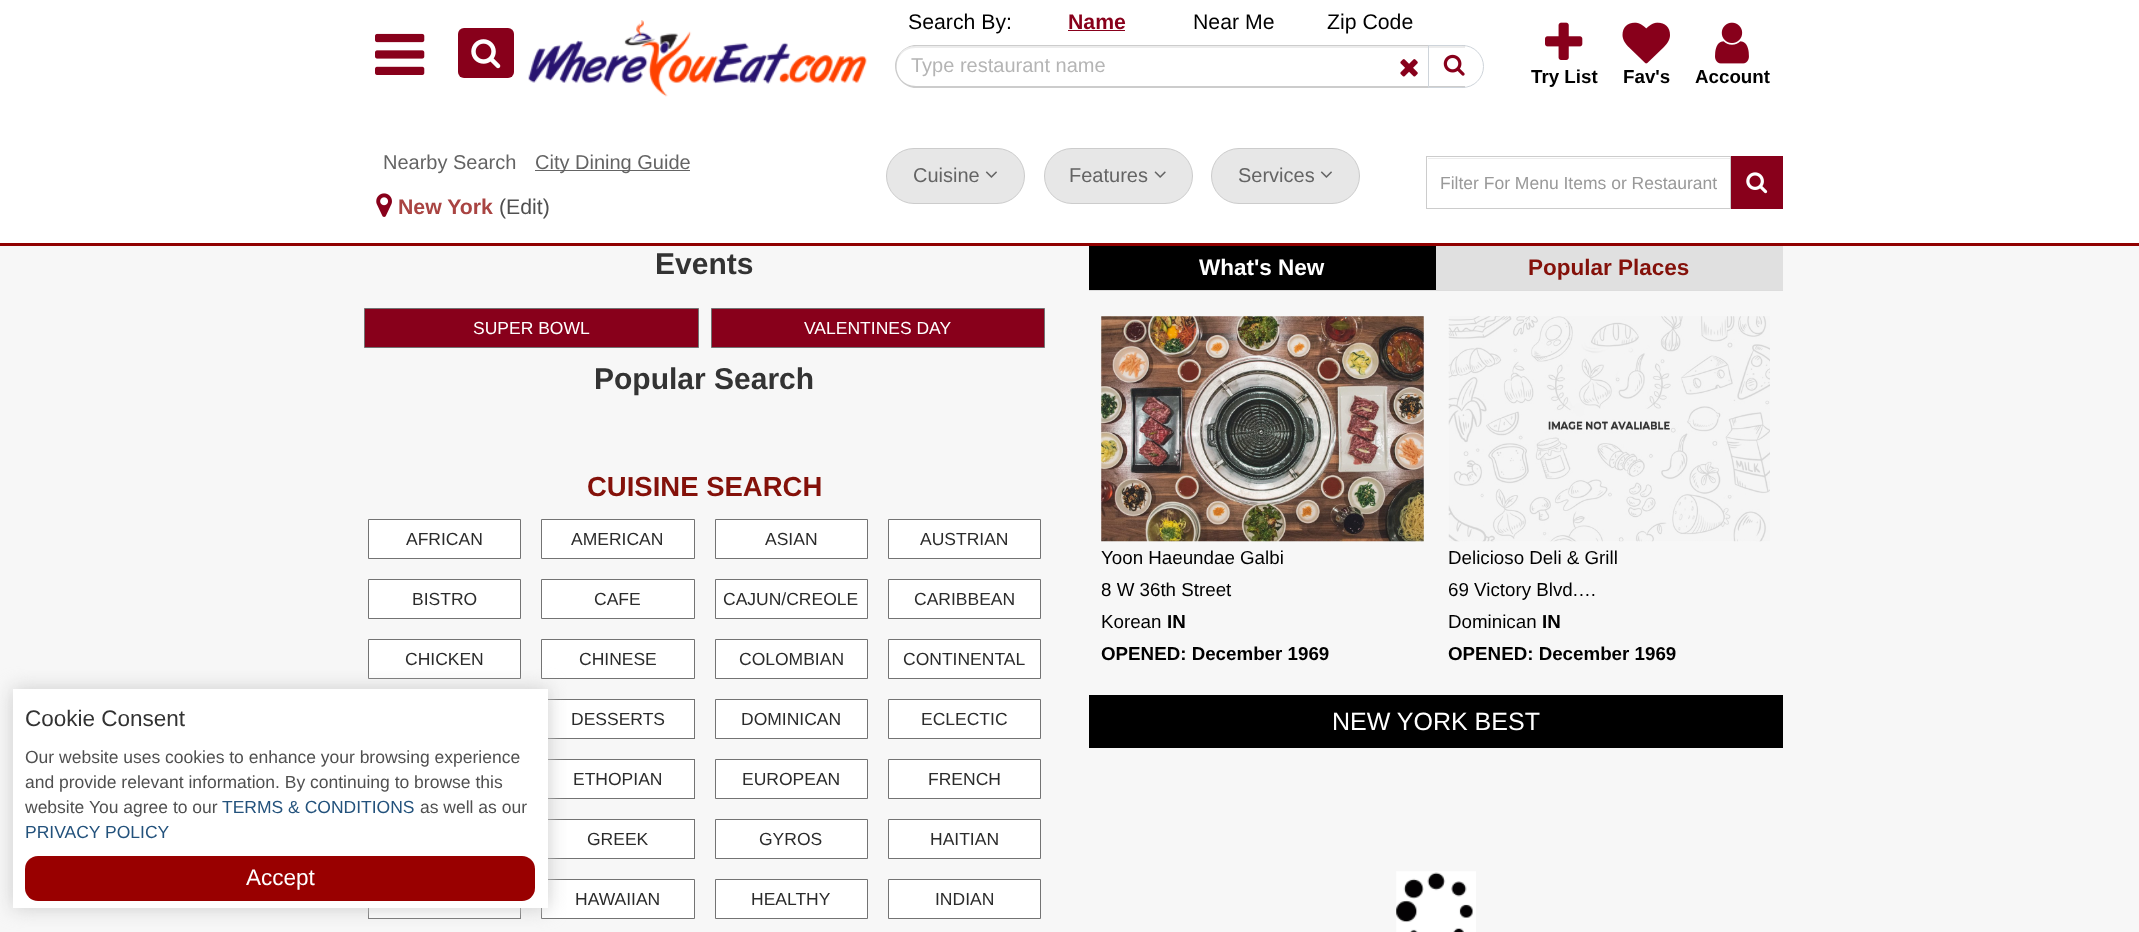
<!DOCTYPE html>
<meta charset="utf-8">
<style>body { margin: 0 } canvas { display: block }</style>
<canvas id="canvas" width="2139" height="932"></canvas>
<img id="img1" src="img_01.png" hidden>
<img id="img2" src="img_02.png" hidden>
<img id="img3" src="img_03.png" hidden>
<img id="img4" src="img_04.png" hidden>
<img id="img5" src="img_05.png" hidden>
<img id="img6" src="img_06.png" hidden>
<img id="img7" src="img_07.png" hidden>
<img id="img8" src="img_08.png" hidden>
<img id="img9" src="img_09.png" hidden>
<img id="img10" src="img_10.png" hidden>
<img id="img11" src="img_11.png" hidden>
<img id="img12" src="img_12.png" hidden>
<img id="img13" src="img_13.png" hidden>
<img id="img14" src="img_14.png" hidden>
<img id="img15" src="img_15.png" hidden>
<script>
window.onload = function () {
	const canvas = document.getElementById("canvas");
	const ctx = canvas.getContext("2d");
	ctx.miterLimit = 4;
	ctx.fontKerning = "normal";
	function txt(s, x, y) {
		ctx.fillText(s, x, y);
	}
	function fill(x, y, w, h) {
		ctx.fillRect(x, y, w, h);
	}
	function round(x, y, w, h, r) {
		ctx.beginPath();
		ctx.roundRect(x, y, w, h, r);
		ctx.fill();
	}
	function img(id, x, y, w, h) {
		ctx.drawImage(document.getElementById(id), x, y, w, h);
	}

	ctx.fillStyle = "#F7F7F7";
	fill(0, 0, 2139, 932);
	ctx.fillStyle = "#FFFFFF";
	fill(0, 0, 2139, 243);
	ctx.fillStyle = "#900000";
	fill(0, 243, 2139, 3);
	img("img1", 375, 33, 50, 42);
	ctx.fillStyle = "#88001B";
	round(458, 28, 56, 50, 6);
	img("img2", 471, 39, 30, 30);
	img("img3", 528, 20, 339, 77);
	fill(1068, 30, 57, 1);
	ctx.fillStyle = "#ECECEC";
	ctx.beginPath();
	ctx.moveTo(916, 48);
	ctx.lineTo(1465, 48);
	ctx.lineTo(1465, 46);
	ctx.lineTo(916, 46);
	ctx.bezierCurveTo(905, 46, 896, 55, 896, 66);
	ctx.lineTo(897, 72);
	ctx.bezierCurveTo(895, 61, 901, 48, 916, 48);
	ctx.closePath();
	ctx.fill();
	ctx.fillStyle = "#CCCCCC";
	ctx.beginPath();
	ctx.moveTo(916, 45);
	ctx.lineTo(1465, 45);
	ctx.lineTo(1465, 88);
	ctx.lineTo(916, 88);
	ctx.bezierCurveTo(905, 88, 895, 78, 895, 66);
	ctx.bezierCurveTo(895, 55, 905, 45, 916, 45);
	ctx.closePath();
	ctx.moveTo(916, 46);
	ctx.lineTo(1465, 46);
	ctx.lineTo(1465, 86);
	ctx.lineTo(916, 86);
	ctx.bezierCurveTo(890, 86, 890, 46, 916, 46);
	ctx.closePath();
	ctx.fill("evenodd");
	img("img4", 1400, 59, 18, 18);
	img("img5", 1443, 54, 22, 22);
	ctx.beginPath();
	ctx.roundRect(1428.5, 45.5, 55, 42, [0, 21, 21, 0]);
	ctx.strokeStyle = "#CED4DA";
	ctx.stroke();
	img("img6", 1545, 22, 38, 38);
	img("img7", 1622, 22, 48, 42);
	img("img8", 1715, 22, 34, 42);
	ctx.fillStyle = "#646464";
	fill(535, 170, 155, 1);
	img("img9", 376, 193, 16, 24);
	ctx.fillStyle = "#E7E7E7";
	ctx.beginPath();
	ctx.roundRect(886.5, 148.5, 138, 55, 27.5);
	ctx.fill();
	ctx.strokeStyle = "#CCCCCC";
	ctx.stroke();
	img("img10", 985, 171, 12, 7);
	ctx.beginPath();
	ctx.roundRect(1044.5, 148.5, 148, 55, 27.5);
	ctx.fill();
	ctx.stroke();
	img("img11", 1154, 171, 12, 7);
	ctx.beginPath();
	ctx.roundRect(1211.5, 148.5, 148, 55, 27.5);
	ctx.fill();
	ctx.stroke();
	img("img10", 1320, 171, 12, 7);
	ctx.fillStyle = "#ECECEC";
	fill(1428, 158, 302, 1);
	ctx.strokeRect(1426.5, 156.5, 304, 52);
	ctx.fillStyle = "#88001B";
	fill(1731, 156, 52, 53);
	img("img12", 1746, 172, 22, 22);
	ctx.fillStyle = "#FFFFFF";
	ctx.beginPath();
	ctx.rect(368.5, 639.5, 152, 39);
	ctx.fill();
	ctx.strokeStyle = "#737373";
	ctx.stroke();
	ctx.beginPath();
	ctx.rect(541.5, 639.5, 153, 39);
	ctx.fill();
	ctx.stroke();
	fill(548, 700, 146, 38);
	ctx.strokeRect(541.5, 699.5, 153, 39);
	fill(548, 760, 146, 38);
	ctx.strokeRect(541.5, 759.5, 153, 39);
	fill(548, 820, 146, 38);
	ctx.strokeRect(541.5, 819.5, 153, 39);
	fill(369, 908, 151, 10);
	ctx.strokeRect(368.5, 879.5, 152, 39);
	ctx.beginPath();
	ctx.rect(541.5, 879.5, 153, 39);
	ctx.fill();
	ctx.stroke();
	ctx.fillStyle = "#CCCCCC";
	ctx.filter = "blur(9.5px)";
	ctx.beginPath();
	ctx.rect(13, 689, 535, 219);
	ctx.fill();
	ctx.filter = "none";
	ctx.fillStyle = "#FFFFFF";
	fill(13, 689, 535, 219);
	ctx.fillStyle = "#990000";
	round(25, 856, 510, 45, 13);
	ctx.fillStyle = "#88001B";
	ctx.beginPath();
	ctx.rect(364.5, 308.5, 334, 39);
	ctx.fill();
	ctx.stroke();
	ctx.beginPath();
	ctx.rect(711.5, 308.5, 333, 39);
	ctx.fill();
	ctx.stroke();
	ctx.fillStyle = "#FFFFFF";
	ctx.beginPath();
	ctx.rect(368.5, 519.5, 152, 39);
	ctx.fill();
	ctx.stroke();
	ctx.beginPath();
	ctx.rect(541.5, 519.5, 153, 39);
	ctx.fill();
	ctx.stroke();
	ctx.beginPath();
	ctx.rect(715.5, 519.5, 152, 39);
	ctx.fill();
	ctx.stroke();
	ctx.beginPath();
	ctx.rect(888.5, 519.5, 152, 39);
	ctx.fill();
	ctx.stroke();
	ctx.beginPath();
	ctx.rect(368.5, 579.5, 152, 39);
	ctx.fill();
	ctx.stroke();
	ctx.beginPath();
	ctx.rect(541.5, 579.5, 153, 39);
	ctx.fill();
	ctx.stroke();
	ctx.beginPath();
	ctx.rect(715.5, 579.5, 152, 39);
	ctx.fill();
	ctx.stroke();
	ctx.beginPath();
	ctx.rect(888.5, 579.5, 152, 39);
	ctx.fill();
	ctx.stroke();
	ctx.beginPath();
	ctx.rect(715.5, 639.5, 152, 39);
	ctx.fill();
	ctx.stroke();
	ctx.beginPath();
	ctx.rect(888.5, 639.5, 152, 39);
	ctx.fill();
	ctx.stroke();
	ctx.beginPath();
	ctx.rect(715.5, 699.5, 152, 39);
	ctx.fill();
	ctx.stroke();
	ctx.beginPath();
	ctx.rect(888.5, 699.5, 152, 39);
	ctx.fill();
	ctx.stroke();
	ctx.beginPath();
	ctx.rect(715.5, 759.5, 152, 39);
	ctx.fill();
	ctx.stroke();
	ctx.beginPath();
	ctx.rect(888.5, 759.5, 152, 39);
	ctx.fill();
	ctx.stroke();
	ctx.beginPath();
	ctx.rect(715.5, 819.5, 152, 39);
	ctx.fill();
	ctx.stroke();
	ctx.beginPath();
	ctx.rect(888.5, 819.5, 152, 39);
	ctx.fill();
	ctx.stroke();
	ctx.beginPath();
	ctx.rect(715.5, 879.5, 152, 39);
	ctx.fill();
	ctx.stroke();
	ctx.beginPath();
	ctx.rect(888.5, 879.5, 152, 39);
	ctx.fill();
	ctx.stroke();
	ctx.fillStyle = "#DDDDDD";
	fill(1089, 290, 694, 1);
	ctx.fillStyle = "#000000";
	fill(1089, 246, 347, 44);
	ctx.fillStyle = "#E0E0E0";
	fill(1436, 246, 347, 44);
	img("img13", 1101, 316, 323, 226);
	img("img14", 1448, 316, 322, 226);
	ctx.fillStyle = "#000000";
	fill(1089, 695, 694, 53);
	img("img15", 1396, 871, 80, 61);
	ctx.font = "21.25px Liberation Sans";
	txt("Search By:", 908, 29);
	ctx.font = "bold 21.25px Liberation Sans";
	ctx.fillStyle = "#88001B";
	txt("Name", 1068, 29);
	ctx.font = "21.25px Liberation Sans";
	ctx.fillStyle = "#000000";
	txt("Near Me", 1193, 29);
	txt("Zip Code", 1327, 29);
	ctx.font = "20px Liberation Sans";
	ctx.fillStyle = "#B5B5B5";
	txt("Type restaurant name", 911, 72);
	ctx.font = "bold 18.75px Liberation Sans";
	ctx.fillStyle = "#000000";
	txt("Try List", 1531, 83);
	txt("Fav's", 1623, 83);
	txt("Account", 1695, 83);
	ctx.font = "20px Liberation Sans";
	ctx.fillStyle = "#646464";
	txt("Nearby Search", 383, 169);
	txt("City Dining Guide", 535, 169);
	ctx.font = "bold 21.25px Liberation Sans";
	ctx.fillStyle = "#A94442";
	txt("New York", 398, 214);
	ctx.font = "21.25px Liberation Sans";
	ctx.fillStyle = "#505050";
	txt("(Edit)", 499, 214);
	ctx.font = "20px Liberation Sans";
	ctx.fillStyle = "#646464";
	txt("Cuisine", 913, 182);
	txt("Features", 1069, 182);
	txt("Services", 1238, 182);
	ctx.font = "17.5px Liberation Sans";
	ctx.fillStyle = "#999999";
	txt("Filter For Menu Items or Restaurant", 1440, 189);
	ctx.font = "22.5px Liberation Sans";
	ctx.fillStyle = "#333333";
	txt("Cookie Consent", 25, 726);
	ctx.font = "17.5px Liberation Sans";
	ctx.fillStyle = "#505050";
	txt("Our website uses cookies to enhance your browsing experience", 25, 763);
	txt("and provide relevant information. By continuing to browse this", 25, 788);
	txt("website You agree to our", 25, 813);
	ctx.fillStyle = "#23527C";
	txt("TERMS & CONDITIONS", 222, 813);
	ctx.fillStyle = "#505050";
	txt("as well as our", 420, 813);
	ctx.fillStyle = "#23527C";
	txt("PRIVACY POLICY", 25, 838);
	ctx.font = "22.5px Liberation Sans";
	ctx.fillStyle = "#FFFFFF";
	txt("Accept", 246, 885);
	ctx.font = "bold 30px Liberation Sans";
	ctx.fillStyle = "#333333";
	txt("Events", 655, 274);
	ctx.font = "17.5px Liberation Sans";
	ctx.fillStyle = "#FFFFFF";
	txt("SUPER BOWL", 473, 334);
	txt("VALENTINES DAY", 804, 334);
	ctx.font = "bold 30px Liberation Sans";
	ctx.fillStyle = "#333333";
	txt("Popular Search", 594, 389);
	ctx.font = "bold 27.5px Liberation Sans";
	ctx.fillStyle = "#84110A";
	txt("CUISINE SEARCH", 587, 496);
	ctx.font = "17.5px Liberation Sans";
	ctx.fillStyle = "#2B2B2B";
	txt("AFRICAN", 406, 545);
	txt("AMERICAN", 571, 545);
	txt("ASIAN", 765, 545);
	txt("AUSTRIAN", 920, 545);
	txt("BISTRO", 412, 605);
	txt("CAFE", 594, 605);
	txt("CAJUN/CREOLE", 723, 605);
	txt("CARIBBEAN", 914, 605);
	txt("CHICKEN", 405, 665);
	txt("CHINESE", 579, 665);
	txt("COLOMBIAN", 739, 665);
	txt("CONTINENTAL", 903, 665);
	txt("DESSERTS", 571, 725);
	txt("DOMINICAN", 741, 725);
	txt("ECLECTIC", 921, 725);
	txt("ETHOPIAN", 573, 785);
	txt("EUROPEAN", 742, 785);
	txt("FRENCH", 928, 785);
	txt("GREEK", 587, 845);
	txt("GYROS", 759, 845);
	txt("HAITIAN", 930, 845);
	txt("HAWAIIAN", 575, 905);
	txt("HEALTHY", 751, 905);
	txt("INDIAN", 935, 905);
	ctx.font = "bold 22.5px Liberation Sans";
	ctx.fillStyle = "#FFFFFF";
	txt("What's New", 1199, 275);
	ctx.fillStyle = "#84110A";
	txt("Popular Places", 1528, 275);
	ctx.font = "18.75px Liberation Sans";
	ctx.fillStyle = "#000000";
	txt("Yoon Haeundae Galbi", 1101, 564);
	txt("8 W 36th Street", 1101, 596);
	txt("Korean", 1101, 628);
	ctx.font = "bold 18.75px Liberation Sans";
	txt("IN", 1167, 628);
	txt("OPENED: December 1969", 1101, 660);
	ctx.font = "18.75px Liberation Sans";
	txt("Delicioso Deli & Grill", 1448, 564);
	txt("69 Victory Blvd.…", 1448, 596);
	txt("Dominican", 1448, 628);
	ctx.font = "bold 18.75px Liberation Sans";
	txt("IN", 1542, 628);
	txt("OPENED: December 1969", 1448, 660);
	ctx.font = "25px Liberation Sans";
	ctx.fillStyle = "#FFFFFF";
	txt("NEW YORK BEST", 1332, 730);
};
</script>
